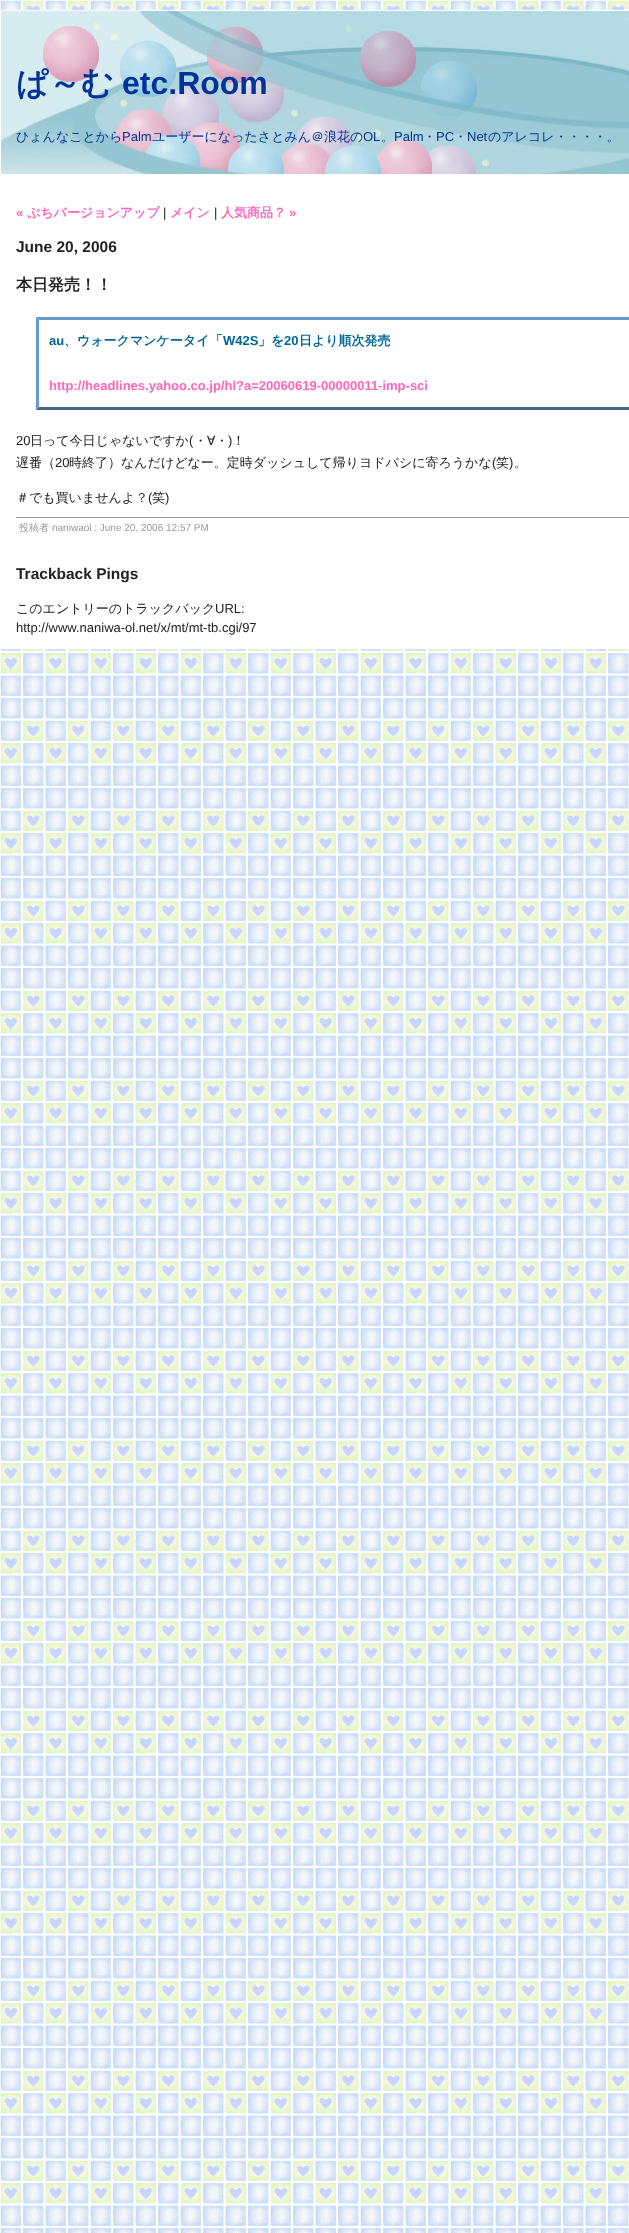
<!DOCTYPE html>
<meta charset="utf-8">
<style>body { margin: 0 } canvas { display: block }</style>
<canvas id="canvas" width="629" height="2233"></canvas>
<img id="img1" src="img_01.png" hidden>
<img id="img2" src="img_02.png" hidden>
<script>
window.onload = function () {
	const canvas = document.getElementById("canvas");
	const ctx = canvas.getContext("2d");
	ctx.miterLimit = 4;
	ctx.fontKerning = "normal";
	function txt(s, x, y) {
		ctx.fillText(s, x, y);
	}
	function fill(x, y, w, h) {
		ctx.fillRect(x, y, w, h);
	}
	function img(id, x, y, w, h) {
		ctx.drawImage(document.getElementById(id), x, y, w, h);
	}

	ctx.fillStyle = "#FFFFFF";
	fill(0, 0, 629, 2233);
	img("img1", 0, 0, 629, 2233);
	fill(0, 10, 629, 639);
	img("img2", 1, 11, 628, 163);
	ctx.fillStyle = "#6699CC";
	ctx.beginPath();
	ctx.moveTo(36, 317);
	ctx.lineTo(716, 317);
	ctx.lineTo(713, 320);
	ctx.lineTo(39, 320);
	ctx.closePath();
	ctx.fill();
	ctx.fillStyle = "#446688";
	ctx.beginPath();
	ctx.moveTo(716, 410);
	ctx.lineTo(36, 410);
	ctx.lineTo(39, 407);
	ctx.lineTo(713, 407);
	ctx.closePath();
	ctx.fill();
	ctx.fillStyle = "#6699CC";
	ctx.beginPath();
	ctx.moveTo(36, 410);
	ctx.lineTo(36, 317);
	ctx.lineTo(39, 320);
	ctx.lineTo(39, 407);
	ctx.closePath();
	ctx.fill();
	ctx.fillStyle = "#999999";
	fill(16, 517, 613, 1);
	ctx.font = "bold 32px WenQuanYi Zen Hei";
	ctx.fillStyle = "#003399";
	txt("ぱ～む", 16, 94);
	ctx.font = "bold 32px Liberation Sans";
	txt("etc.Room", 122, 94);
	ctx.font = "500 13px WenQuanYi Zen Hei";
	txt("ひょんなことから", 16, 141);
	ctx.font = "13px Liberation Sans";
	txt("Palm", 122, 141);
	ctx.font = "500 13px WenQuanYi Zen Hei";
	txt("ユーザーになったさとみん＠浪花の", 152, 141);
	ctx.font = "13px Liberation Sans";
	txt("OL", 363, 141);
	txt("Palm", 394, 141);
	ctx.font = "500 13px WenQuanYi Zen Hei";
	txt("・", 423, 141);
	ctx.font = "13px Liberation Sans";
	txt("PC", 436, 141);
	ctx.font = "500 13px WenQuanYi Zen Hei";
	txt("・", 454, 141);
	ctx.font = "13px Liberation Sans";
	txt("Net", 467, 141);
	ctx.font = "500 13px WenQuanYi Zen Hei";
	txt("のアレコレ・・・・。", 488, 141);
	txt("。", 381, 141);
	ctx.font = "bold 13px Liberation Sans";
	ctx.fillStyle = "#FF66BB";
	txt("«", 16, 217);
	ctx.font = "bold 13px WenQuanYi Zen Hei";
	txt("ぷちバージョンアップ", 27, 217);
	ctx.font = "13px Liberation Sans";
	ctx.fillStyle = "#222222";
	txt("|", 163, 217);
	ctx.font = "bold 13px WenQuanYi Zen Hei";
	ctx.fillStyle = "#FF66BB";
	txt("メイン", 170, 217);
	ctx.font = "13px Liberation Sans";
	ctx.fillStyle = "#222222";
	txt("|", 214, 217);
	ctx.font = "bold 13px WenQuanYi Zen Hei";
	ctx.fillStyle = "#FF66BB";
	txt("人気商品？", 221, 217);
	ctx.font = "bold 13px Liberation Sans";
	txt("»", 289, 217);
	ctx.font = "bold 15.5px Liberation Sans";
	ctx.fillStyle = "#222222";
	txt("June 20, 2006", 16, 252);
	ctx.font = "bold 16px WenQuanYi Zen Hei";
	txt("本日発売！！", 16, 290);
	ctx.font = "bold 13px Liberation Sans";
	ctx.fillStyle = "#006699";
	txt("au", 49, 345);
	ctx.font = "bold 13px WenQuanYi Zen Hei";
	txt("、ウォークマンケータイ「", 64, 345);
	ctx.font = "bold 13px Liberation Sans";
	txt("W42S", 223, 345);
	ctx.font = "bold 13px WenQuanYi Zen Hei";
	txt("」を", 258, 345);
	ctx.font = "bold 13px Liberation Sans";
	txt("20", 284, 345);
	ctx.font = "bold 13px WenQuanYi Zen Hei";
	txt("日より順次発売", 299, 345);
	ctx.font = "bold 13px Liberation Sans";
	ctx.fillStyle = "#FF66BB";
	txt("http://headlines.yahoo.co.jp/hl?a=20060619-00000011-imp-sci", 49, 390);
	ctx.font = "13px Liberation Sans";
	ctx.fillStyle = "#222222";
	txt("20", 16, 445);
	ctx.font = "500 13px WenQuanYi Zen Hei";
	txt("日って今日じゃないですか", 30, 445);
	ctx.font = "13px Liberation Sans";
	txt("(", 189, 445);
	ctx.font = "500 13px WenQuanYi Zen Hei";
	txt("・∀・", 194, 445);
	ctx.font = "13px Liberation Sans";
	txt(")", 228, 445);
	ctx.font = "500 13px WenQuanYi Zen Hei";
	txt("！", 232, 445);
	txt("遅番（", 16, 467);
	ctx.font = "13px Liberation Sans";
	txt("20", 55, 467);
	ctx.font = "500 13px WenQuanYi Zen Hei";
	txt("時終了）なんだけどなー。定時ダッシュして帰りヨドバシに寄ろうかな", 69, 467);
	ctx.font = "13px Liberation Sans";
	txt("(", 492, 467);
	ctx.font = "500 13px WenQuanYi Zen Hei";
	txt("笑", 496, 467);
	ctx.font = "13px Liberation Sans";
	txt(")", 509, 467);
	ctx.font = "500 13px WenQuanYi Zen Hei";
	txt("。", 514, 467);
	txt("＃でも買いませんよ？", 16, 502);
	ctx.font = "13px Liberation Sans";
	txt("(", 148, 502);
	ctx.font = "500 13px WenQuanYi Zen Hei";
	txt("笑", 152, 502);
	ctx.font = "13px Liberation Sans";
	txt(")", 165, 502);
	ctx.font = "500 10px WenQuanYi Zen Hei";
	ctx.fillStyle = "#999999";
	txt("投稿者", 19, 531);
	ctx.font = "10px Liberation Sans";
	txt("naniwaol : June 20, 2006 12:57 PM", 52, 531);
	ctx.font = "bold 15.5px Liberation Sans";
	ctx.fillStyle = "#222222";
	txt("Trackback Pings", 16, 579);
	ctx.font = "500 13px WenQuanYi Zen Hei";
	txt("このエントリーのトラックバック", 16, 613);
	ctx.font = "13px Liberation Sans";
	txt("URL:", 215, 613);
	txt("http://www.naniwa-ol.net/x/mt/mt-tb.cgi/97", 16, 632);
};
</script>
